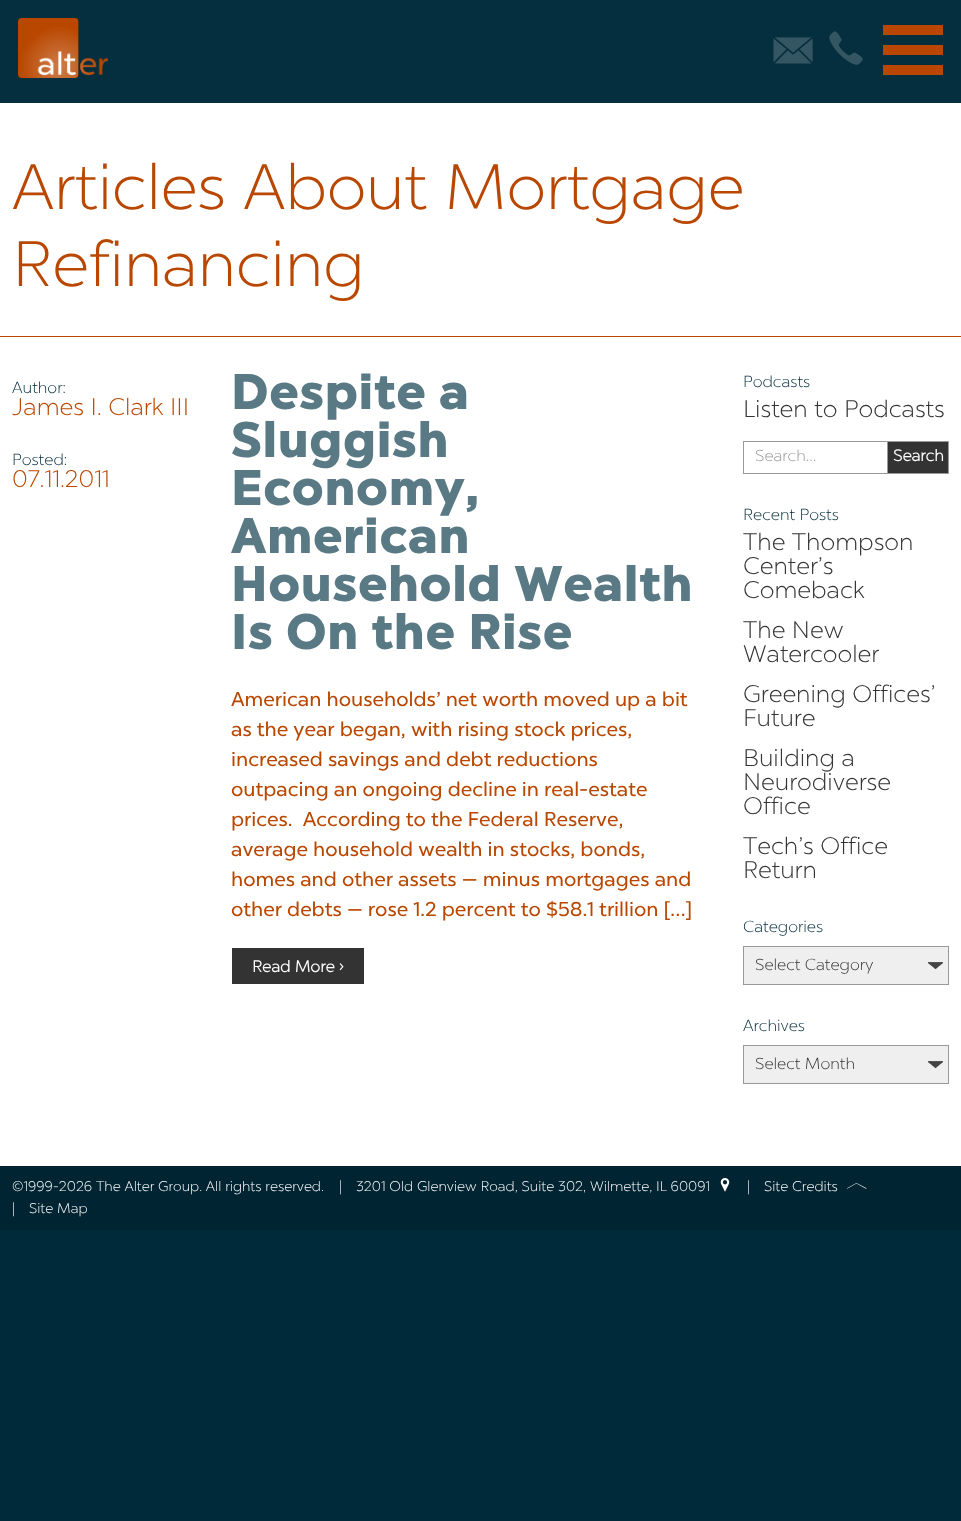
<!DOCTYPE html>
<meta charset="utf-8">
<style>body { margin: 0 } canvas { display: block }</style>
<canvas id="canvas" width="961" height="1521"></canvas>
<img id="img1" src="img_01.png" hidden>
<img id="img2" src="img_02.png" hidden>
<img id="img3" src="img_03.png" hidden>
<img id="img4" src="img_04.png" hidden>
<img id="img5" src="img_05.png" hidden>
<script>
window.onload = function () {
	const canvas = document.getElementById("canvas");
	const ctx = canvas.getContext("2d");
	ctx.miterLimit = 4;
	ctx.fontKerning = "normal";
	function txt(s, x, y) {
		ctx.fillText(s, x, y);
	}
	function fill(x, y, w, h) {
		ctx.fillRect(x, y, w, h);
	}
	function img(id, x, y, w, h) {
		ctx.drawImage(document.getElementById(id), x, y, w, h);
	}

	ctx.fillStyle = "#002A3A";
	fill(0, 0, 961, 1521);
	ctx.fillStyle = "#052E3E";
	fill(0, 0, 961, 103);
	img("img1", 18, 18, 90, 60);
	img("img2", 773, 37, 40, 27);
	img("img3", 829, 31, 34, 34);
	ctx.fillStyle = "#B94700";
	fill(883, 65, 60, 10);
	fill(883, 25, 60, 10);
	fill(883, 45, 60, 10);
	ctx.fillStyle = "#FFFFFF";
	fill(0, 103, 961, 1063);
	ctx.fillStyle = "#B94700";
	fill(0, 336, 961, 1);
	ctx.fillStyle = "#333333";
	fill(232, 948, 132, 36);
	ctx.fillStyle = "#999999";
	fill(743, 441, 144, 1);
	fill(743, 473, 144, 1);
	fill(743, 441, 1, 33);
	ctx.fillStyle = "#333333";
	ctx.beginPath();
	ctx.rect(887.5, 441.5, 61, 32);
	ctx.fill();
	ctx.strokeStyle = "#999999";
	ctx.stroke();
	ctx.fillStyle = "#EFEFEF";
	fill(744, 947, 204, 37);
	img("img4", 928, 962, 15, 7);
	ctx.strokeRect(743.5, 946.5, 205, 38);
	fill(744, 1046, 204, 37);
	img("img4", 928, 1061, 15, 7);
	ctx.strokeRect(743.5, 1045.5, 205, 38);
	ctx.fillStyle = "#002432";
	fill(0, 1166, 961, 64);
	img("img5", 720, 1178, 10, 14);
	ctx.fillStyle = "#FFFFFF";
	ctx.beginPath();
	ctx.moveTo(847.5, 1188.5);
	ctx.lineTo(856.5, 1183.5);
	ctx.lineTo(865.5, 1188.5);
	ctx.lineTo(867, 1188.5);
	ctx.lineTo(856.5, 1183);
	ctx.lineTo(846.5, 1188.5);
	ctx.closePath();
	ctx.fill();
	ctx.font = "64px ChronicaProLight";
	ctx.fillStyle = "#B94700";
	txt("Articles About Mortgage", 12, 209);
	txt("Refinancing", 12, 286);
	ctx.font = "16px ChronicaProLight";
	ctx.fillStyle = "#002A3A";
	txt("Author:", 12, 393);
	ctx.font = "24px ChronicaProLight";
	ctx.fillStyle = "#B94700";
	txt("James I. Clark III", 12, 415);
	ctx.font = "16px ChronicaProLight";
	ctx.fillStyle = "#002A3A";
	txt("Posted:", 12, 465);
	ctx.font = "24px ChronicaProLight";
	ctx.fillStyle = "#B94700";
	txt("07.11.2011", 12, 487);
	ctx.letterSpacing = "2px";
	ctx.font = "bold 48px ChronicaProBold";
	ctx.fillStyle = "#597985";
	txt("Despite a", 231, 409);
	txt("Sluggish", 231, 457);
	txt("Economy,", 231, 505);
	txt("American", 231, 553);
	txt("Household Wealth", 231, 601);
	txt("Is On the Rise", 231, 649);
	ctx.letterSpacing = "0px";
	ctx.font = "20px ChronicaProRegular";
	ctx.fillStyle = "#B94700";
	txt("American households’ net worth moved up a bit", 231, 706);
	txt("as the year began, with rising stock prices,", 231, 736);
	txt("increased savings and debt reductions", 231, 766);
	txt("outpacing an ongoing decline in real-estate", 231, 796);
	txt("prices.  According to the Federal Reserve,", 231, 826);
	txt("average household wealth in stocks, bonds,", 231, 856);
	txt("homes and other assets — minus mortgages and", 231, 886);
	txt("other debts — rose 1.2 percent to $58.1 trillion […]", 231, 916);
	ctx.font = "bold 16px ChronicaProLight";
	ctx.fillStyle = "#FFFFFF";
	txt("Read More ›", 252, 972);
	ctx.font = "16px ChronicaProLight";
	ctx.fillStyle = "#002A3A";
	txt("Podcasts", 743, 387);
	ctx.font = "24px ChronicaProLight";
	ctx.fillStyle = "#333333";
	txt("Listen to Podcasts", 743, 417);
	ctx.font = "16px ChronicaProLight";
	ctx.fillStyle = "#999999";
	txt("Search…", 755, 461);
	ctx.font = "bold 16px ChronicaProLight";
	ctx.fillStyle = "#FFFFFF";
	txt("Search", 893, 461);
	ctx.font = "16px ChronicaProLight";
	ctx.fillStyle = "#002A3A";
	txt("Recent Posts", 743, 520);
	ctx.font = "24px ChronicaProLight";
	ctx.fillStyle = "#333333";
	txt("The Thompson", 743, 550);
	txt("Center’s", 743, 574);
	txt("Comeback", 743, 598);
	txt("The New", 743, 638);
	txt("Watercooler", 743, 662);
	txt("Greening Offices’", 743, 702);
	txt("Future", 743, 726);
	txt("Building a", 743, 766);
	txt("Neurodiverse", 743, 790);
	txt("Office", 743, 814);
	txt("Tech’s Office", 743, 854);
	txt("Return", 743, 878);
	ctx.font = "16px ChronicaProLight";
	ctx.fillStyle = "#002A3A";
	txt("Categories", 743, 932);
	ctx.fillStyle = "#333333";
	txt("Select Category", 755, 970);
	ctx.fillStyle = "#002A3A";
	txt("Archives", 743, 1031);
	ctx.fillStyle = "#333333";
	txt("Select Month", 755, 1069);
	ctx.font = "14px ChronicaProLight";
	ctx.fillStyle = "#FFFFFF";
	txt("©1999-2026 The Alter Group. All rights reserved.", 12, 1191);
	txt("|", 339, 1191);
	txt("3201 Old Glenview Road, Suite 302, Wilmette, IL 60091", 356, 1191);
	txt("|", 747, 1191);
	txt("Site Credits", 764, 1191);
	txt("|", 12, 1213);
	txt("Site Map", 29, 1213);
};
</script>
